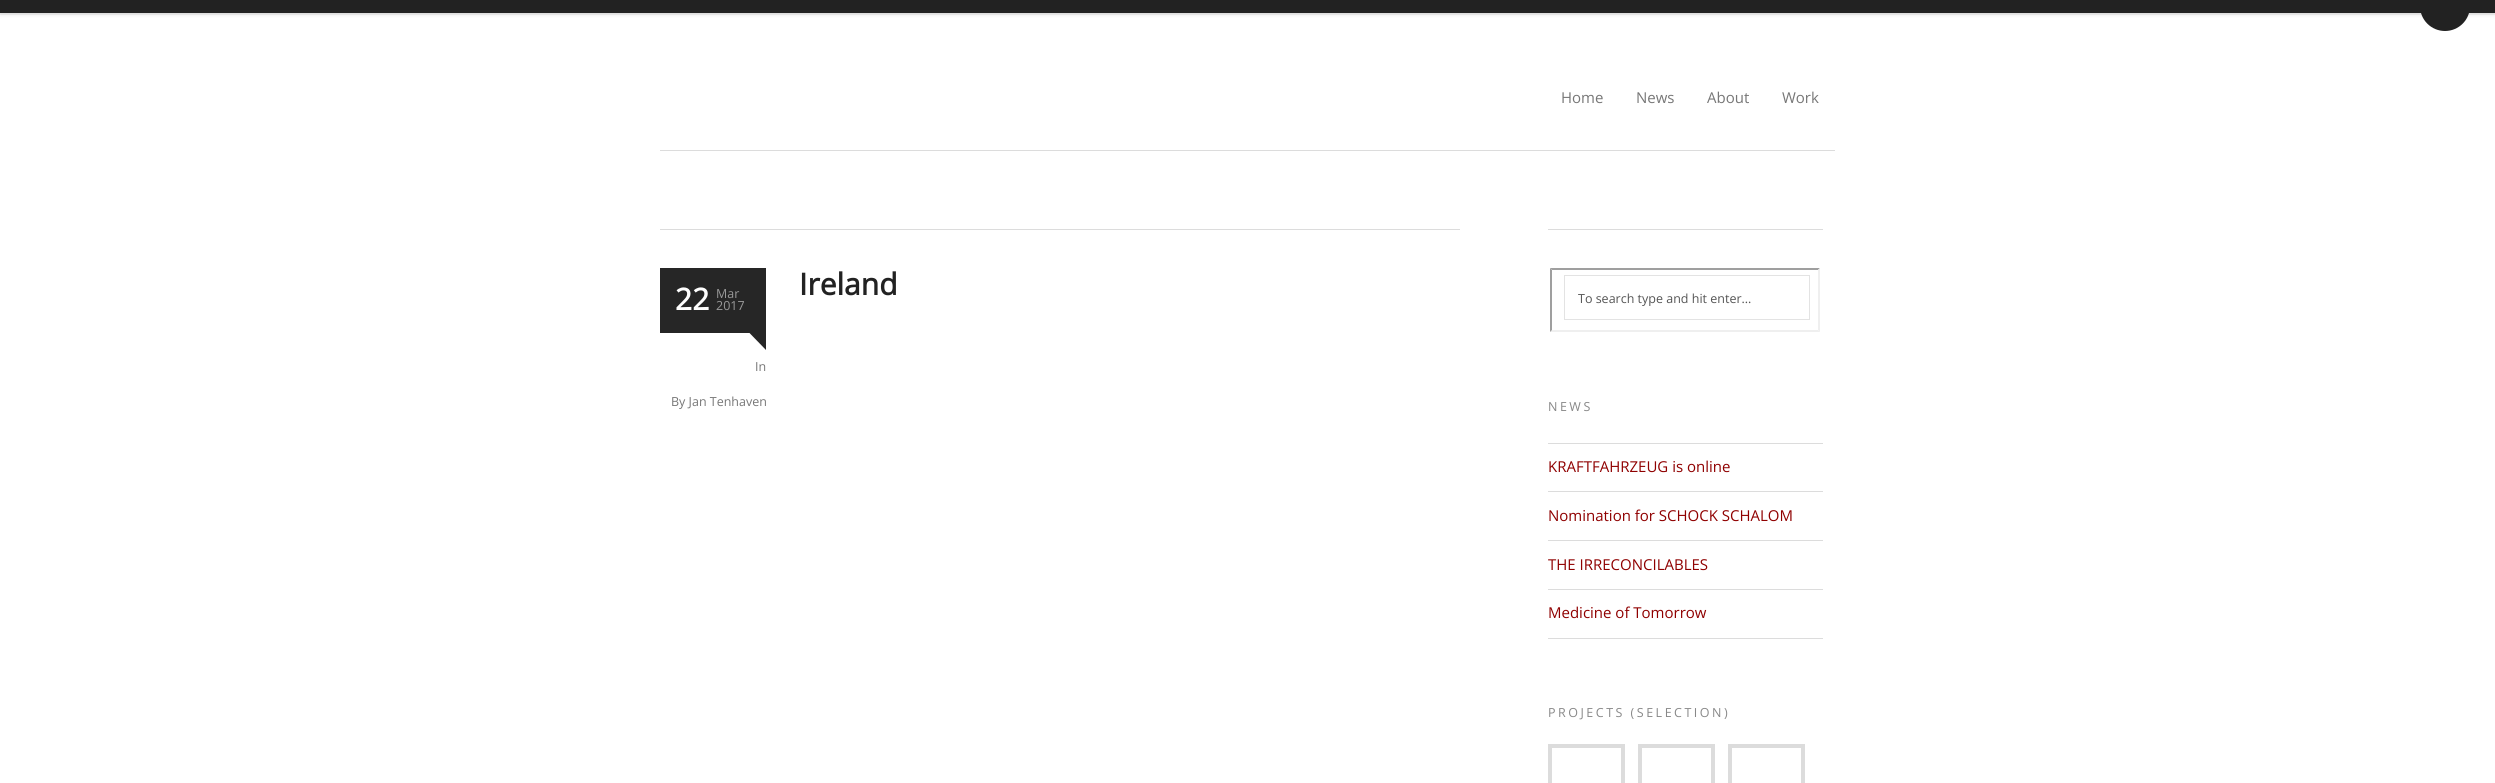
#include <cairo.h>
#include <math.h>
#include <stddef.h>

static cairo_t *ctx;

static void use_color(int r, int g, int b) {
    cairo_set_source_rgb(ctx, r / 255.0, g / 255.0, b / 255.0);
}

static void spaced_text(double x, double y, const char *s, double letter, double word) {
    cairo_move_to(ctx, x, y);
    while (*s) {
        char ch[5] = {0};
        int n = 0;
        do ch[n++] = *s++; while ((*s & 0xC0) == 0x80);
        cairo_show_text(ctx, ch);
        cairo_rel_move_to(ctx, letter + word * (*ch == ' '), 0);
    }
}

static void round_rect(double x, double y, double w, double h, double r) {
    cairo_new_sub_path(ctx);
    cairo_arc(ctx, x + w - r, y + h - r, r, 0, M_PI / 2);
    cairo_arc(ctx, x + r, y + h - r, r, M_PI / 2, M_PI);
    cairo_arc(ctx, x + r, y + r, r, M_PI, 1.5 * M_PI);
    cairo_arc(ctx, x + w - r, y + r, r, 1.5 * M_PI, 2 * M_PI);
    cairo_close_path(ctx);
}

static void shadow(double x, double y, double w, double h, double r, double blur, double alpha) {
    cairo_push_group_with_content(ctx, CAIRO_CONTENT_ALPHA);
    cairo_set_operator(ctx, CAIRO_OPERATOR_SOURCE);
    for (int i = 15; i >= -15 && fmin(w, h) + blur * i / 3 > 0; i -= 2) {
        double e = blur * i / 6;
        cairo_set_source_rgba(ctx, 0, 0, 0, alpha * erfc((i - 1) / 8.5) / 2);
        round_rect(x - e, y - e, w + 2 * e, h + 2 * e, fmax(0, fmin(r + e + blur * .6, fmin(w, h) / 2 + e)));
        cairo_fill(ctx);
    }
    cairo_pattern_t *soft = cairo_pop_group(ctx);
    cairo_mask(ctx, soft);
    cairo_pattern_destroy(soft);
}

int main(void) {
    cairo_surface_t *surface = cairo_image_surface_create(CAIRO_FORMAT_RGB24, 2495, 783);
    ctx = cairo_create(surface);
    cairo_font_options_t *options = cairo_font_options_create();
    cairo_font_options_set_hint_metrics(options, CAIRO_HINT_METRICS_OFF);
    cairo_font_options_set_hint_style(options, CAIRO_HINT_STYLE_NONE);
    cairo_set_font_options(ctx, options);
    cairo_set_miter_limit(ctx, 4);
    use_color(255, 255, 255);
    cairo_paint(ctx);
    use_color(0, 0, 0);
    shadow(0, 0, 2495, 13, 0, 3, 0.2);
    cairo_set_source_rgba(ctx, 0, 0, 0, 0.05);
    cairo_rectangle(ctx, 0, 13, 2495, 2);
    cairo_fill(ctx);
    use_color(34, 34, 34);
    cairo_rectangle(ctx, 0, 0, 2495, 13);
    cairo_fill(ctx);
    round_rect(2420, -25, 50, 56, 25);
    cairo_fill(ctx);
    cairo_select_font_face(ctx, "Open Sans", CAIRO_FONT_SLANT_NORMAL, CAIRO_FONT_WEIGHT_NORMAL);
    cairo_set_font_size(ctx, 15);
    use_color(119, 119, 119);
    cairo_move_to(ctx, 1561, 103);
    cairo_show_text(ctx, "Home");
    cairo_move_to(ctx, 1636, 103);
    cairo_show_text(ctx, "News");
    cairo_move_to(ctx, 1707, 103);
    cairo_show_text(ctx, "About");
    cairo_move_to(ctx, 1782, 103);
    cairo_show_text(ctx, "Work");
    use_color(220, 220, 220);
    cairo_rectangle(ctx, 660, 150, 1175, 1);
    cairo_fill(ctx);
    cairo_rectangle(ctx, 660, 229, 800, 1);
    cairo_fill(ctx);
    cairo_select_font_face(ctx, "Open Sans", CAIRO_FONT_SLANT_NORMAL, CAIRO_FONT_WEIGHT_BOLD);
    cairo_set_font_size(ctx, 30);
    use_color(34, 34, 34);
    cairo_move_to(ctx, 799, 295);
    cairo_show_text(ctx, "Ireland");
    use_color(38, 38, 38);
    cairo_rectangle(ctx, 660, 268, 106, 65);
    cairo_fill(ctx);
    use_color(255, 255, 255);
    cairo_move_to(ctx, 675, 310);
    cairo_show_text(ctx, "22");
    cairo_select_font_face(ctx, "Open Sans", CAIRO_FONT_SLANT_NORMAL, CAIRO_FONT_WEIGHT_NORMAL);
    cairo_set_font_size(ctx, 12.5);
    use_color(153, 153, 153);
    cairo_move_to(ctx, 716, 298);
    cairo_show_text(ctx, "Mar");
    cairo_move_to(ctx, 716, 310);
    cairo_show_text(ctx, "2017");
    use_color(38, 38, 38);
    cairo_new_path(ctx);
    cairo_move_to(ctx, 766, 332.5);
    cairo_line_to(ctx, 766, 350);
    cairo_line_to(ctx, 749, 332.5);
    cairo_close_path(ctx);
    cairo_fill(ctx);
    use_color(119, 119, 119);
    cairo_move_to(ctx, 755, 371);
    cairo_show_text(ctx, "In");
    cairo_move_to(ctx, 671, 406);
    cairo_show_text(ctx, "By Jan Tenhaven");
    use_color(220, 220, 220);
    cairo_rectangle(ctx, 1548, 229, 275, 1);
    cairo_fill(ctx);
    use_color(159, 159, 159);
    cairo_new_path(ctx);
    cairo_move_to(ctx, 1550, 268);
    cairo_line_to(ctx, 1820, 268);
    cairo_line_to(ctx, 1818, 270);
    cairo_line_to(ctx, 1552, 270);
    cairo_close_path(ctx);
    cairo_fill(ctx);
    use_color(239, 239, 239);
    cairo_new_path(ctx);
    cairo_move_to(ctx, 1820, 268);
    cairo_line_to(ctx, 1820, 332);
    cairo_line_to(ctx, 1818, 330);
    cairo_line_to(ctx, 1818, 270);
    cairo_close_path(ctx);
    cairo_fill(ctx);
    cairo_new_path(ctx);
    cairo_move_to(ctx, 1820, 332);
    cairo_line_to(ctx, 1550, 332);
    cairo_line_to(ctx, 1552, 330);
    cairo_line_to(ctx, 1818, 330);
    cairo_close_path(ctx);
    cairo_fill(ctx);
    use_color(159, 159, 159);
    cairo_new_path(ctx);
    cairo_move_to(ctx, 1550, 332);
    cairo_line_to(ctx, 1550, 268);
    cairo_line_to(ctx, 1552, 270);
    cairo_line_to(ctx, 1552, 330);
    cairo_close_path(ctx);
    cairo_fill(ctx);
    cairo_rectangle(ctx, 1564.5, 275.5, 245, 44);
    use_color(227, 227, 227);
    cairo_set_line_width(ctx, 1);
    cairo_stroke(ctx);
    use_color(85, 85, 85);
    cairo_move_to(ctx, 1578, 303);
    cairo_show_text(ctx, "To search type and hit enter...");
    use_color(136, 136, 136);
    spaced_text(1548, 411, "NEWS", 2.5, 0);
    use_color(220, 220, 220);
    cairo_rectangle(ctx, 1548, 443, 275, 1);
    cairo_fill(ctx);
    cairo_rectangle(ctx, 1548, 491, 275, 1);
    cairo_fill(ctx);
    cairo_set_font_size(ctx, 15);
    use_color(143, 0, 0);
    cairo_move_to(ctx, 1548, 472);
    cairo_show_text(ctx, "KRAFTFAHRZEUG is online");
    use_color(220, 220, 220);
    cairo_rectangle(ctx, 1548, 540, 275, 1);
    cairo_fill(ctx);
    use_color(143, 0, 0);
    cairo_move_to(ctx, 1548, 521);
    cairo_show_text(ctx, "Nomination for SCHOCK SCHALOM");
    use_color(220, 220, 220);
    cairo_rectangle(ctx, 1548, 589, 275, 1);
    cairo_fill(ctx);
    use_color(143, 0, 0);
    cairo_move_to(ctx, 1548, 570);
    cairo_show_text(ctx, "THE IRRECONCILABLES");
    use_color(220, 220, 220);
    cairo_rectangle(ctx, 1548, 638, 275, 1);
    cairo_fill(ctx);
    use_color(143, 0, 0);
    cairo_move_to(ctx, 1548, 618);
    cairo_show_text(ctx, "Medicine of Tomorrow");
    cairo_set_font_size(ctx, 12.5);
    use_color(136, 136, 136);
    spaced_text(1548, 717, "PROJECTS (SELECTION)", 2.5, 0);
    cairo_rectangle(ctx, 1550, 746, 73, 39);
    use_color(220, 220, 220);
    cairo_set_line_width(ctx, 4);
    cairo_stroke(ctx);
    cairo_rectangle(ctx, 1640, 746, 73, 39);
    cairo_stroke(ctx);
    cairo_rectangle(ctx, 1730, 746, 73, 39);
    cairo_stroke(ctx);
    cairo_surface_write_to_png(surface, "result.png");
    cairo_font_options_destroy(options);
    cairo_destroy(ctx);
    cairo_surface_destroy(surface);
    return 0;
}
